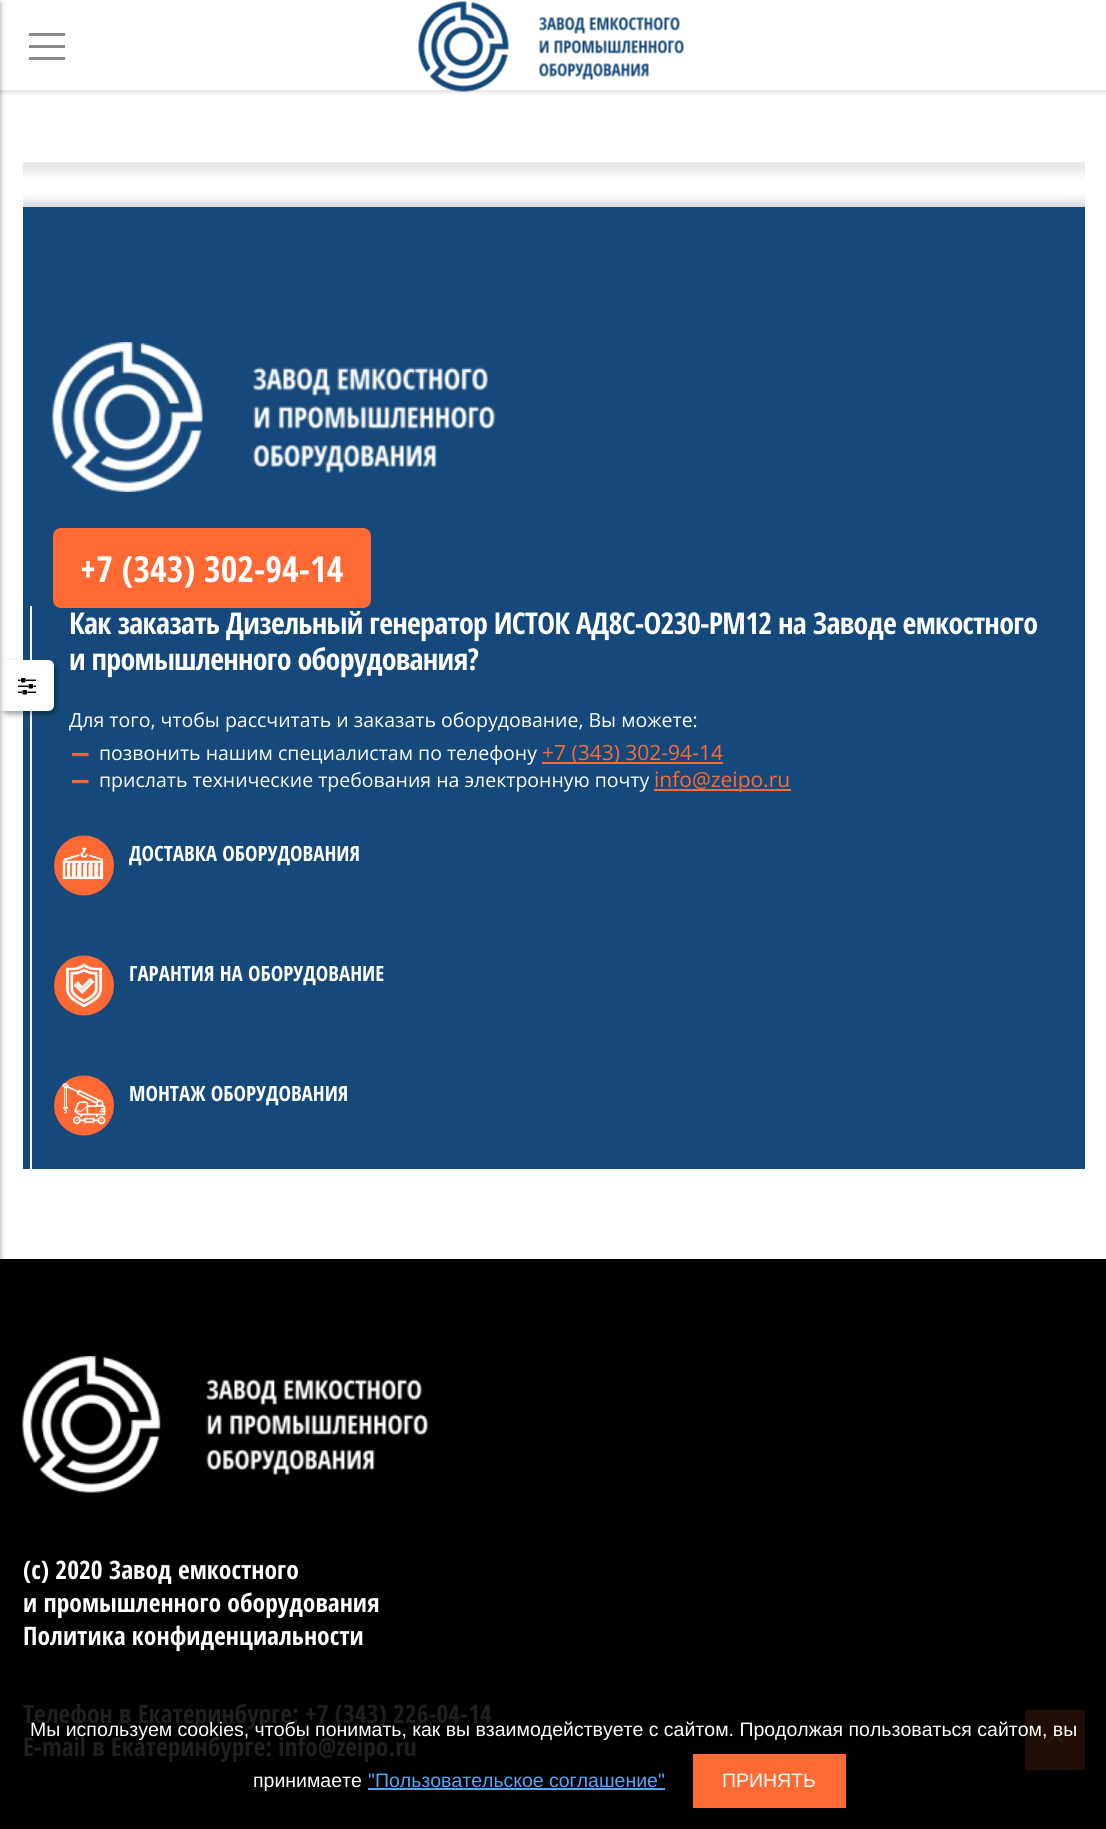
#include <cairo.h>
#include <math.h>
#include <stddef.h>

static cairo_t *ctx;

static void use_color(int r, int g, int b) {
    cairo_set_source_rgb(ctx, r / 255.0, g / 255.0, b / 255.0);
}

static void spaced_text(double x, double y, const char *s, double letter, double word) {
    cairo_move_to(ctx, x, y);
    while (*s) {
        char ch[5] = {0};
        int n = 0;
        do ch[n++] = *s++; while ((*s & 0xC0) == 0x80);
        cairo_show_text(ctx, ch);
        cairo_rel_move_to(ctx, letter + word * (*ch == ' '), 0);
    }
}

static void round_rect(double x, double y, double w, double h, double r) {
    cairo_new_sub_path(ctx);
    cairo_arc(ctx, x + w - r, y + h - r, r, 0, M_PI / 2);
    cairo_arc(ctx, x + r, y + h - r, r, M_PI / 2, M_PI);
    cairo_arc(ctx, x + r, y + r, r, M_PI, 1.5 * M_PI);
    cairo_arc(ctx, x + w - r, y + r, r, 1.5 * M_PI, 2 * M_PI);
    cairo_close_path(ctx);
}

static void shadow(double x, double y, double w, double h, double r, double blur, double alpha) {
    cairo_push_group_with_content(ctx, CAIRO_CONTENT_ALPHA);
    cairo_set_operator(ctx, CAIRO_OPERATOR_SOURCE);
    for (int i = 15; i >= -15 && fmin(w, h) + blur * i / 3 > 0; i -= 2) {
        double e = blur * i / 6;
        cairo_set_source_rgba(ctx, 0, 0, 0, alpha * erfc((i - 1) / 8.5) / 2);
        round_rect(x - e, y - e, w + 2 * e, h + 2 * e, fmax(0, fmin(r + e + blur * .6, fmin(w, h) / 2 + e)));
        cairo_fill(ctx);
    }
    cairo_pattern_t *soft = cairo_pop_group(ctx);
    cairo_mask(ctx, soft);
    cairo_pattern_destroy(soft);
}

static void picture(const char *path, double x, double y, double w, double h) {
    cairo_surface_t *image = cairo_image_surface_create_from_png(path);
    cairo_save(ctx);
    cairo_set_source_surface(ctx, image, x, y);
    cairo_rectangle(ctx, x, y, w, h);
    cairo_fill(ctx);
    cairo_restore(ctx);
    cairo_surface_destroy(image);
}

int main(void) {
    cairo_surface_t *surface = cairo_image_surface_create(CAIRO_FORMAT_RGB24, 1106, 1829);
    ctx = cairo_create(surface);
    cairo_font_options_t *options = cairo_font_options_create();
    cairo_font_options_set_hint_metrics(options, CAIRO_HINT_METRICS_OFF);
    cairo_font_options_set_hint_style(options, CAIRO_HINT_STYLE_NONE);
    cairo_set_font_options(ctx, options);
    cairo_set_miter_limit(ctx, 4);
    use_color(255, 255, 255);
    cairo_paint(ctx);
    use_color(0, 0, 0);
    shadow(-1, -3, 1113, 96, 0, 2, 0.1);
    cairo_save(ctx);
    cairo_rectangle(ctx, 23, 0, 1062, 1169);
    cairo_clip(ctx);
    cairo_set_fill_rule(ctx, CAIRO_FILL_RULE_EVEN_ODD);
    cairo_new_path(ctx);
    cairo_move_to(ctx, 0, 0);
    cairo_line_to(ctx, 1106, 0);
    cairo_line_to(ctx, 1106, 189);
    cairo_line_to(ctx, 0, 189);
    cairo_close_path(ctx);
    cairo_move_to(ctx, 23, -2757);
    cairo_line_to(ctx, 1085, -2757);
    cairo_line_to(ctx, 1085, 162);
    cairo_line_to(ctx, 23, 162);
    cairo_close_path(ctx);
    cairo_clip(ctx);
    use_color(230, 230, 230);
    shadow(12, -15, 1083, 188, 0, 5, 1);
    cairo_restore(ctx);
    use_color(255, 255, 255);
    cairo_rectangle(ctx, 0, 0, 1106, 90);
    cairo_fill(ctx);
    use_color(138, 138, 138);
    cairo_rectangle(ctx, 29, 33, 36, 3);
    cairo_fill(ctx);
    cairo_rectangle(ctx, 29, 45, 36, 3);
    cairo_fill(ctx);
    cairo_rectangle(ctx, 29, 57, 36, 3);
    cairo_fill(ctx);
    picture("img1.png", 418, 1, 266, 91);
    cairo_save(ctx);
    cairo_rectangle(ctx, 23, 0, 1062, 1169);
    cairo_clip(ctx);
    use_color(216, 216, 216);
    shadow(17, 201, 1074, 1004, 0, 4.5, 1);
    cairo_restore(ctx);
    use_color(21, 73, 123);
    cairo_rectangle(ctx, 23, 207, 1062, 962);
    cairo_fill(ctx);
    use_color(255, 255, 255);
    cairo_rectangle(ctx, 30, 606, 2, 563);
    cairo_fill(ctx);
    use_color(0, 0, 0);
    shadow(2, 663, 54, 51, 6, 3, 0.4);
    use_color(255, 255, 255);
    cairo_new_path(ctx);
    cairo_move_to(ctx, 0, 660);
    cairo_line_to(ctx, 48, 660);
    cairo_curve_to(ctx, 51.5, 660, 54, 662.5, 54, 666);
    cairo_line_to(ctx, 54, 705);
    cairo_curve_to(ctx, 54, 708.5, 51.5, 711, 48, 711);
    cairo_line_to(ctx, 0, 711);
    cairo_close_path(ctx);
    cairo_fill(ctx);
    picture("img2.png", 18, 678, 18, 17);
    use_color(0, 0, 0);
    cairo_rectangle(ctx, 0, 1259, 1106, 570);
    cairo_fill(ctx);
    use_color(0, 0, 0);
    shadow(-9, 3, 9, 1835, 0, 3, 0.4);
    picture("img3.png", 52, 342, 444, 150);
    use_color(255, 105, 51);
    round_rect(53, 528, 318, 80, 8);
    cairo_fill(ctx);
    cairo_select_font_face(ctx, "Open Sans Condensed", CAIRO_FONT_SLANT_NORMAL, CAIRO_FONT_WEIGHT_BOLD);
    cairo_set_font_size(ctx, 36);
    use_color(255, 255, 255);
    cairo_move_to(ctx, 80, 582);
    cairo_show_text(ctx, "+7 (343) 302-94-14");
    cairo_set_font_size(ctx, 30);
    spaced_text(69, 634, "Как заказать Дизельный генератор ИСТОК АД8С-О230-РМ12 на Заводе емкостного", -0.75, 0);
    spaced_text(69, 670, "и промышленного оборудования?", -0.75, 0);
    cairo_select_font_face(ctx, "Open Sans", CAIRO_FONT_SLANT_NORMAL, CAIRO_FONT_WEIGHT_NORMAL);
    cairo_set_font_size(ctx, 19.5);
    cairo_move_to(ctx, 69, 727);
    cairo_show_text(ctx, "Для того, чтобы рассчитать и заказать оборудование, Вы можете:");
    picture("img4.png", 72, 753, 17, 4);
    cairo_move_to(ctx, 99, 760);
    cairo_show_text(ctx, "позвонить нашим специалистам по телефону");
    use_color(255, 105, 51);
    cairo_rectangle(ctx, 542, 762, 181, 2);
    cairo_fill(ctx);
    cairo_set_font_size(ctx, 21);
    cairo_move_to(ctx, 542, 760);
    cairo_show_text(ctx, "+7 (343) 302-94-14");
    picture("img4.png", 72, 780, 17, 4);
    cairo_set_font_size(ctx, 19.5);
    use_color(255, 255, 255);
    cairo_move_to(ctx, 99, 787);
    cairo_show_text(ctx, "прислать технические требования на электронную почту");
    use_color(255, 105, 51);
    cairo_rectangle(ctx, 654, 789, 137, 2);
    cairo_fill(ctx);
    cairo_set_font_size(ctx, 21);
    cairo_move_to(ctx, 654, 787);
    cairo_show_text(ctx, "info@zeipo.ru");
    picture("img5.png", 54, 835, 60, 61);
    cairo_select_font_face(ctx, "Open Sans Condensed", CAIRO_FONT_SLANT_NORMAL, CAIRO_FONT_WEIGHT_BOLD);
    use_color(255, 255, 255);
    cairo_move_to(ctx, 129, 861);
    cairo_show_text(ctx, "ДОСТАВКА ОБОРУДОВАНИЯ");
    picture("img6.png", 54, 955, 60, 61);
    cairo_move_to(ctx, 129, 981);
    cairo_show_text(ctx, "ГАРАНТИЯ НА ОБОРУДОВАНИЕ");
    picture("img7.png", 54, 1075, 60, 61);
    cairo_move_to(ctx, 129, 1101);
    cairo_show_text(ctx, "МОНТАЖ ОБОРУДОВАНИЯ");
    picture("img8.png", 22, 1356, 407, 137);
    cairo_set_font_size(ctx, 25.5);
    cairo_move_to(ctx, 23, 1579);
    cairo_show_text(ctx, "(с) 2020 Завод емкостного");
    cairo_move_to(ctx, 23, 1612);
    cairo_show_text(ctx, "и промышленного оборудования");
    cairo_move_to(ctx, 23, 1645);
    cairo_show_text(ctx, "Политика конфиденциальности");
    use_color(31, 31, 31);
    cairo_move_to(ctx, 23, 1723);
    cairo_show_text(ctx, "Телефон в Екатеринбурге: +7 (343) 226-04-14");
    cairo_move_to(ctx, 23, 1756);
    cairo_show_text(ctx, "E-mail в Екатеринбурге: info@zeipo.ru");
    use_color(31, 13, 6);
    cairo_rectangle(ctx, 1025, 1710, 60, 60);
    cairo_fill(ctx);
    picture("img9.png", 1046, 1733, 18, 10);
    cairo_select_font_face(ctx, "Liberation Sans", CAIRO_FONT_SLANT_NORMAL, CAIRO_FONT_WEIGHT_NORMAL);
    cairo_set_font_size(ctx, 19.5);
    use_color(255, 255, 255);
    cairo_move_to(ctx, 30, 1736);
    cairo_show_text(ctx, "Мы используем cookies, чтобы понимать, как вы взаимодействуете с сайтом. Продолжая пользоваться сайтом, вы");
    cairo_move_to(ctx, 253, 1787);
    cairo_show_text(ctx, "принимаете");
    use_color(83, 167, 248);
    cairo_move_to(ctx, 368, 1787);
    cairo_show_text(ctx, "\"Пользовательское соглашение\"");
    cairo_rectangle(ctx, 368, 1788, 297, 2);
    cairo_fill(ctx);
    use_color(255, 105, 51);
    cairo_rectangle(ctx, 693, 1754, 153, 54);
    cairo_fill(ctx);
    use_color(255, 255, 255);
    cairo_move_to(ctx, 722, 1787);
    cairo_show_text(ctx, "ПРИНЯТЬ");
    cairo_surface_write_to_png(surface, "result.png");
    cairo_font_options_destroy(options);
    cairo_destroy(ctx);
    cairo_surface_destroy(surface);
    return 0;
}
